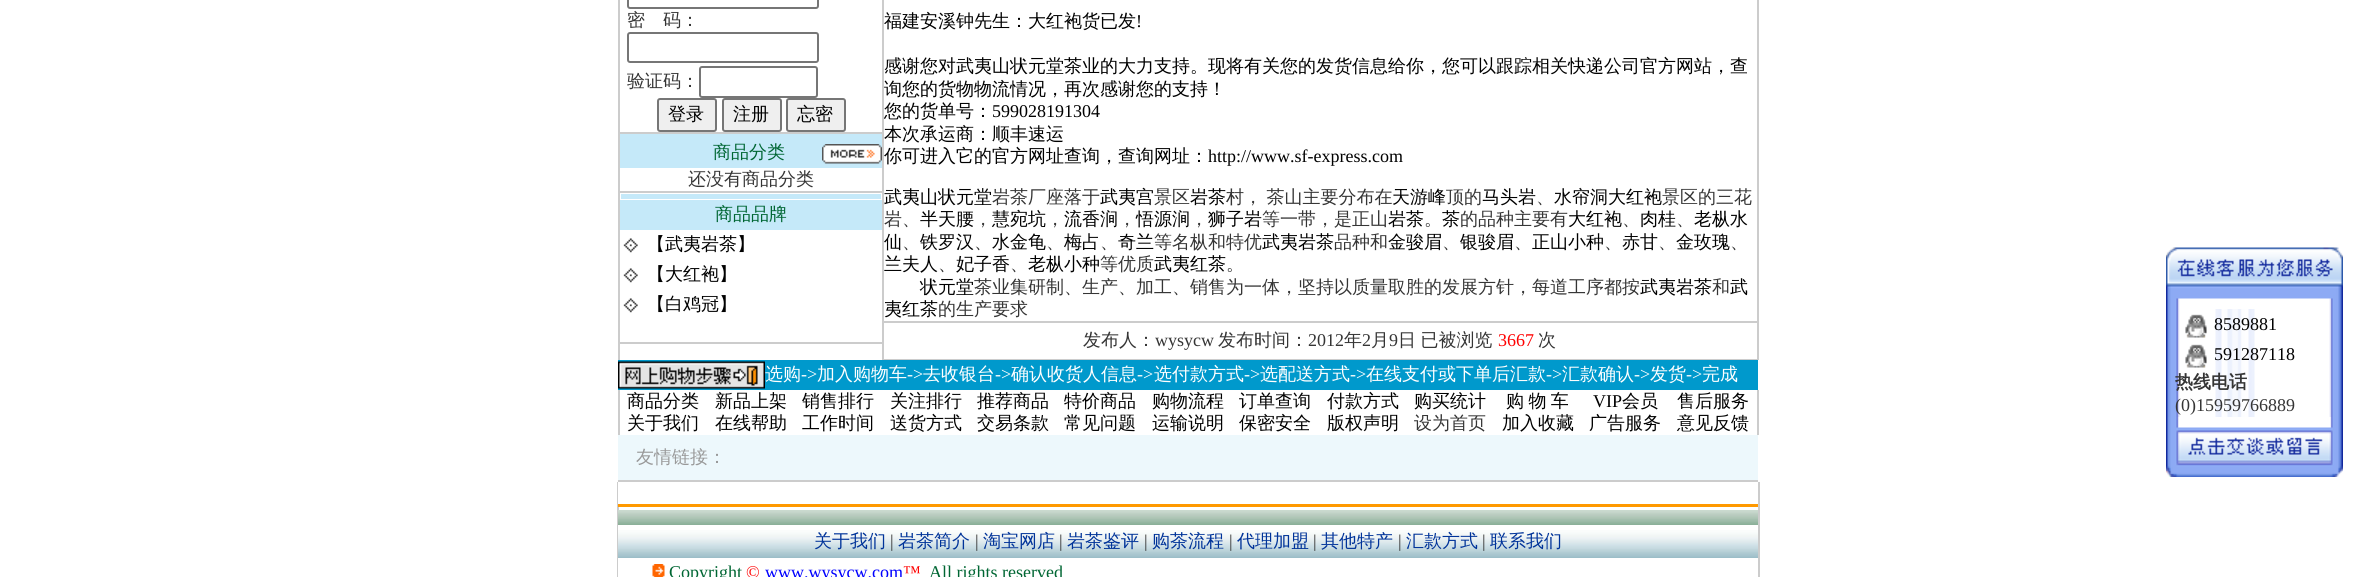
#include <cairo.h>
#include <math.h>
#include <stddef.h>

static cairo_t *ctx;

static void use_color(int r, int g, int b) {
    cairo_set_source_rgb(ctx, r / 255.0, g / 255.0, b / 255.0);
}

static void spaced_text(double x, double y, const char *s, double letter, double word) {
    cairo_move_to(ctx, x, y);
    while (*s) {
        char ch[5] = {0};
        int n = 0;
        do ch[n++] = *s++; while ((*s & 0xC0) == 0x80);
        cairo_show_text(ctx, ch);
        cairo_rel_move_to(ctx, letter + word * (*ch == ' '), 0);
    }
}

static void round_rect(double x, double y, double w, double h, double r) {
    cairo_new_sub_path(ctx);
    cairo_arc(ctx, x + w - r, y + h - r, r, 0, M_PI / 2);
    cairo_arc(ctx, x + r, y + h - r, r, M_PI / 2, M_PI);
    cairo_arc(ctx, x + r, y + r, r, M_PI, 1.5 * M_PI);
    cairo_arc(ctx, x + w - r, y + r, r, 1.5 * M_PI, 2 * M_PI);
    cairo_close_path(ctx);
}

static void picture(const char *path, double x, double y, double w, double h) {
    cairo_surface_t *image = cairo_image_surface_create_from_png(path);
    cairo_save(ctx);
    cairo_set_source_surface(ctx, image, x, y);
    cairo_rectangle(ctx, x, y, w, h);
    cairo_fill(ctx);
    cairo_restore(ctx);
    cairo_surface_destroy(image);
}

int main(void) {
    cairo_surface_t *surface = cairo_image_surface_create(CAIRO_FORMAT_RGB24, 2376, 577);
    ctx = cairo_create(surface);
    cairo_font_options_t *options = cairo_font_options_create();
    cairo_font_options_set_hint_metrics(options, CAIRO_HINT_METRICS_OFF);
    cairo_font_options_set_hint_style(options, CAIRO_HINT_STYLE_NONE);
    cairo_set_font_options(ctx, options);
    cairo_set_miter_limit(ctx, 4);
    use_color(255, 255, 255);
    cairo_paint(ctx);
    use_color(204, 204, 204);
    cairo_rectangle(ctx, 1757, 0, 2, 360);
    cairo_fill(ctx);
    cairo_rectangle(ctx, 618, 0, 2, 360);
    cairo_fill(ctx);
    round_rect(628, -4, 190, 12, 2);
    use_color(118, 118, 118);
    cairo_stroke(ctx);
    cairo_select_font_face(ctx, "WenQuanYi Zen Hei Medium", CAIRO_FONT_SLANT_NORMAL, CAIRO_FONT_WEIGHT_NORMAL);
    cairo_set_font_size(ctx, 18);
    use_color(53, 53, 53);
    cairo_move_to(ctx, 627, 26);
    cairo_show_text(ctx, "密　码：");
    round_rect(628, 33, 190, 29, 2);
    use_color(118, 118, 118);
    cairo_stroke(ctx);
    use_color(53, 53, 53);
    cairo_move_to(ctx, 627, 87);
    cairo_show_text(ctx, "验证码：");
    round_rect(700, 67, 117, 30, 2);
    use_color(118, 118, 118);
    cairo_stroke(ctx);
    use_color(239, 239, 239);
    round_rect(658, 99, 58, 32, 2);
    cairo_fill_preserve(ctx);
    use_color(118, 118, 118);
    cairo_stroke(ctx);
    use_color(0, 0, 0);
    cairo_move_to(ctx, 668, 120);
    cairo_show_text(ctx, "登录");
    use_color(239, 239, 239);
    round_rect(723, 99, 58, 32, 2);
    cairo_fill_preserve(ctx);
    use_color(118, 118, 118);
    cairo_stroke(ctx);
    use_color(0, 0, 0);
    cairo_move_to(ctx, 733, 120);
    cairo_show_text(ctx, "注册");
    use_color(239, 239, 239);
    round_rect(787, 99, 58, 32, 2);
    cairo_fill_preserve(ctx);
    use_color(118, 118, 118);
    cairo_stroke(ctx);
    use_color(0, 0, 0);
    cairo_move_to(ctx, 797, 120);
    cairo_show_text(ctx, "忘密");
    use_color(204, 204, 204);
    cairo_rectangle(ctx, 620, 132, 262, 2);
    cairo_fill(ctx);
    use_color(197, 233, 249);
    cairo_rectangle(ctx, 620, 134, 262, 4);
    cairo_fill(ctx);
    cairo_rectangle(ctx, 620, 138, 262, 30);
    cairo_fill(ctx);
    use_color(0, 102, 51);
    cairo_move_to(ctx, 713, 158);
    cairo_show_text(ctx, "商品分类");
    picture("img1.png", 822, 144, 60, 20);
    use_color(53, 53, 53);
    cairo_move_to(ctx, 688, 185);
    cairo_show_text(ctx, "还没有商品分类");
    use_color(204, 204, 204);
    cairo_rectangle(ctx, 620, 191, 262, 2);
    cairo_fill(ctx);
    use_color(197, 233, 249);
    cairo_rectangle(ctx, 621, 194, 260, 5);
    cairo_fill(ctx);
    cairo_rectangle(ctx, 620, 200, 262, 30);
    cairo_fill(ctx);
    use_color(0, 102, 51);
    cairo_move_to(ctx, 715, 220);
    cairo_show_text(ctx, "商品品牌");
    picture("img2.png", 623, 238, 15, 15);
    use_color(0, 0, 0);
    cairo_move_to(ctx, 647, 250);
    cairo_show_text(ctx, "【武夷岩茶】");
    picture("img2.png", 623, 268, 15, 15);
    cairo_move_to(ctx, 647, 280);
    cairo_show_text(ctx, "【大红袍】");
    picture("img2.png", 623, 298, 15, 15);
    cairo_move_to(ctx, 647, 310);
    cairo_show_text(ctx, "【白鸡冠】");
    use_color(204, 204, 204);
    cairo_rectangle(ctx, 620, 342, 262, 2);
    cairo_fill(ctx);
    cairo_rectangle(ctx, 882, 0, 2, 360);
    cairo_fill(ctx);
    cairo_rectangle(ctx, 884, 321, 873, 2);
    cairo_fill(ctx);
    use_color(0, 0, 0);
    cairo_move_to(ctx, 884, 27);
    cairo_show_text(ctx, "福建安溪钟先生：大红袍货已发");
    cairo_select_font_face(ctx, "Liberation Serif", CAIRO_FONT_SLANT_NORMAL, CAIRO_FONT_WEIGHT_NORMAL);
    cairo_move_to(ctx, 1136, 27);
    cairo_show_text(ctx, "!");
    cairo_select_font_face(ctx, "WenQuanYi Zen Hei Medium", CAIRO_FONT_SLANT_NORMAL, CAIRO_FONT_WEIGHT_NORMAL);
    cairo_move_to(ctx, 884, 72);
    cairo_show_text(ctx, "感谢您对武夷山状元堂茶业的大力支持。现将有关您的发货信息给你，您可以跟踪相关快递公司官方网站，查");
    cairo_move_to(ctx, 884, 95);
    cairo_show_text(ctx, "询您的货物物流情况，再次感谢您的支持！");
    cairo_move_to(ctx, 884, 117);
    cairo_show_text(ctx, "您的货单号：");
    cairo_select_font_face(ctx, "Liberation Serif", CAIRO_FONT_SLANT_NORMAL, CAIRO_FONT_WEIGHT_NORMAL);
    cairo_move_to(ctx, 992, 117);
    cairo_show_text(ctx, "599028191304");
    cairo_select_font_face(ctx, "WenQuanYi Zen Hei Medium", CAIRO_FONT_SLANT_NORMAL, CAIRO_FONT_WEIGHT_NORMAL);
    cairo_move_to(ctx, 884, 140);
    cairo_show_text(ctx, "本次承运商：顺丰速运");
    cairo_move_to(ctx, 884, 162);
    cairo_show_text(ctx, "你可进入它的官方网址查询，查询网址：");
    cairo_select_font_face(ctx, "Liberation Serif", CAIRO_FONT_SLANT_NORMAL, CAIRO_FONT_WEIGHT_NORMAL);
    cairo_move_to(ctx, 1208, 162);
    cairo_show_text(ctx, "http://www.sf-express.com");
    cairo_select_font_face(ctx, "WenQuanYi Zen Hei Medium", CAIRO_FONT_SLANT_NORMAL, CAIRO_FONT_WEIGHT_NORMAL);
    cairo_move_to(ctx, 884, 203);
    cairo_show_text(ctx, "武夷山状元堂");
    use_color(53, 53, 53);
    cairo_move_to(ctx, 992, 203);
    cairo_show_text(ctx, "岩茶厂座落于");
    use_color(0, 0, 0);
    cairo_move_to(ctx, 1100, 203);
    cairo_show_text(ctx, "武夷宫");
    use_color(53, 53, 53);
    cairo_move_to(ctx, 1154, 203);
    cairo_show_text(ctx, "景区");
    use_color(0, 0, 0);
    cairo_move_to(ctx, 1190, 203);
    cairo_show_text(ctx, "岩茶");
    use_color(53, 53, 53);
    spaced_text(1226, 203, "村， 茶山主要分布在", 0, -1);
    use_color(0, 0, 0);
    cairo_move_to(ctx, 1392, 203);
    cairo_show_text(ctx, "天游峰");
    use_color(53, 53, 53);
    cairo_move_to(ctx, 1446, 203);
    cairo_show_text(ctx, "顶的");
    use_color(0, 0, 0);
    cairo_move_to(ctx, 1482, 203);
    cairo_show_text(ctx, "马头岩");
    use_color(53, 53, 53);
    cairo_move_to(ctx, 1536, 203);
    cairo_show_text(ctx, "、");
    use_color(0, 0, 0);
    cairo_move_to(ctx, 1554, 203);
    cairo_show_text(ctx, "水帘洞大红袍");
    use_color(53, 53, 53);
    cairo_move_to(ctx, 1662, 203);
    cairo_show_text(ctx, "景区的三花");
    cairo_move_to(ctx, 884, 225);
    cairo_show_text(ctx, "岩、");
    use_color(0, 0, 0);
    cairo_move_to(ctx, 920, 225);
    cairo_show_text(ctx, "半天腰");
    use_color(53, 53, 53);
    cairo_move_to(ctx, 974, 225);
    cairo_show_text(ctx, "，");
    use_color(0, 0, 0);
    cairo_move_to(ctx, 992, 225);
    cairo_show_text(ctx, "慧宛坑");
    use_color(53, 53, 53);
    cairo_move_to(ctx, 1046, 225);
    cairo_show_text(ctx, "，");
    use_color(0, 0, 0);
    cairo_move_to(ctx, 1064, 225);
    cairo_show_text(ctx, "流香涧");
    use_color(53, 53, 53);
    cairo_move_to(ctx, 1118, 225);
    cairo_show_text(ctx, "，");
    use_color(0, 0, 0);
    cairo_move_to(ctx, 1136, 225);
    cairo_show_text(ctx, "悟源涧");
    use_color(53, 53, 53);
    cairo_move_to(ctx, 1190, 225);
    cairo_show_text(ctx, "，");
    use_color(0, 0, 0);
    cairo_move_to(ctx, 1208, 225);
    cairo_show_text(ctx, "狮子岩");
    use_color(53, 53, 53);
    cairo_move_to(ctx, 1262, 225);
    cairo_show_text(ctx, "等一带，是正山");
    use_color(0, 0, 0);
    cairo_move_to(ctx, 1388, 225);
    cairo_show_text(ctx, "岩茶");
    use_color(53, 53, 53);
    cairo_move_to(ctx, 1424, 225);
    cairo_show_text(ctx, "。");
    use_color(0, 0, 0);
    cairo_move_to(ctx, 1442, 225);
    cairo_show_text(ctx, "茶");
    use_color(53, 53, 53);
    cairo_move_to(ctx, 1460, 225);
    cairo_show_text(ctx, "的品种主要有");
    use_color(0, 0, 0);
    cairo_move_to(ctx, 1568, 225);
    cairo_show_text(ctx, "大红袍");
    use_color(53, 53, 53);
    cairo_move_to(ctx, 1622, 225);
    cairo_show_text(ctx, "、");
    use_color(0, 0, 0);
    cairo_move_to(ctx, 1640, 225);
    cairo_show_text(ctx, "肉桂");
    use_color(53, 53, 53);
    cairo_move_to(ctx, 1676, 225);
    cairo_show_text(ctx, "、");
    use_color(0, 0, 0);
    cairo_move_to(ctx, 1694, 225);
    cairo_show_text(ctx, "老枞水");
    cairo_move_to(ctx, 884, 248);
    cairo_show_text(ctx, "仙");
    use_color(53, 53, 53);
    cairo_move_to(ctx, 902, 248);
    cairo_show_text(ctx, "、");
    use_color(0, 0, 0);
    cairo_move_to(ctx, 920, 248);
    cairo_show_text(ctx, "铁罗汉");
    use_color(53, 53, 53);
    cairo_move_to(ctx, 974, 248);
    cairo_show_text(ctx, "、");
    use_color(0, 0, 0);
    cairo_move_to(ctx, 992, 248);
    cairo_show_text(ctx, "水金龟");
    use_color(53, 53, 53);
    cairo_move_to(ctx, 1046, 248);
    cairo_show_text(ctx, "、");
    use_color(0, 0, 0);
    cairo_move_to(ctx, 1064, 248);
    cairo_show_text(ctx, "梅占");
    use_color(53, 53, 53);
    cairo_move_to(ctx, 1100, 248);
    cairo_show_text(ctx, "、");
    use_color(0, 0, 0);
    cairo_move_to(ctx, 1118, 248);
    cairo_show_text(ctx, "奇兰");
    use_color(53, 53, 53);
    cairo_move_to(ctx, 1154, 248);
    cairo_show_text(ctx, "等名枞和特优");
    use_color(0, 0, 0);
    cairo_move_to(ctx, 1262, 248);
    cairo_show_text(ctx, "武夷岩茶");
    use_color(53, 53, 53);
    cairo_move_to(ctx, 1334, 248);
    cairo_show_text(ctx, "品种和");
    use_color(0, 0, 0);
    cairo_move_to(ctx, 1388, 248);
    cairo_show_text(ctx, "金骏眉");
    use_color(53, 53, 53);
    cairo_move_to(ctx, 1442, 248);
    cairo_show_text(ctx, "、");
    use_color(0, 0, 0);
    cairo_move_to(ctx, 1460, 248);
    cairo_show_text(ctx, "银骏眉");
    use_color(53, 53, 53);
    cairo_move_to(ctx, 1514, 248);
    cairo_show_text(ctx, "、");
    use_color(0, 0, 0);
    cairo_move_to(ctx, 1532, 248);
    cairo_show_text(ctx, "正山小种");
    use_color(53, 53, 53);
    cairo_move_to(ctx, 1604, 248);
    cairo_show_text(ctx, "、");
    use_color(0, 0, 0);
    cairo_move_to(ctx, 1622, 248);
    cairo_show_text(ctx, "赤甘");
    use_color(53, 53, 53);
    cairo_move_to(ctx, 1658, 248);
    cairo_show_text(ctx, "、");
    use_color(0, 0, 0);
    cairo_move_to(ctx, 1676, 248);
    cairo_show_text(ctx, "金玫瑰");
    use_color(53, 53, 53);
    cairo_move_to(ctx, 1730, 248);
    cairo_show_text(ctx, "、");
    use_color(0, 0, 0);
    cairo_move_to(ctx, 884, 270);
    cairo_show_text(ctx, "兰夫人");
    use_color(53, 53, 53);
    cairo_move_to(ctx, 938, 270);
    cairo_show_text(ctx, "、");
    use_color(0, 0, 0);
    cairo_move_to(ctx, 956, 270);
    cairo_show_text(ctx, "妃子香");
    use_color(53, 53, 53);
    cairo_move_to(ctx, 1010, 270);
    cairo_show_text(ctx, "、");
    use_color(0, 0, 0);
    cairo_move_to(ctx, 1028, 270);
    cairo_show_text(ctx, "老枞小种");
    use_color(53, 53, 53);
    cairo_move_to(ctx, 1100, 270);
    cairo_show_text(ctx, "等优质");
    use_color(0, 0, 0);
    cairo_move_to(ctx, 1154, 270);
    cairo_show_text(ctx, "武夷红茶");
    use_color(53, 53, 53);
    cairo_move_to(ctx, 1226, 270);
    cairo_show_text(ctx, "。");
    use_color(0, 0, 0);
    cairo_move_to(ctx, 920, 293);
    cairo_show_text(ctx, "状元堂");
    use_color(53, 53, 53);
    cairo_move_to(ctx, 974, 293);
    cairo_show_text(ctx, "茶业集研制、生产、加工、销售为一体，坚持以质量取胜的发展方针，每道工序都按");
    use_color(0, 0, 0);
    cairo_move_to(ctx, 1640, 293);
    cairo_show_text(ctx, "武夷岩茶");
    use_color(53, 53, 53);
    cairo_move_to(ctx, 1712, 293);
    cairo_show_text(ctx, "和");
    use_color(0, 0, 0);
    cairo_move_to(ctx, 1730, 293);
    cairo_show_text(ctx, "武");
    cairo_move_to(ctx, 884, 315);
    cairo_show_text(ctx, "夷红茶");
    use_color(53, 53, 53);
    cairo_move_to(ctx, 938, 315);
    cairo_show_text(ctx, "的生产要求");
    use_color(204, 204, 204);
    cairo_rectangle(ctx, 884, 359, 873, 1);
    cairo_fill(ctx);
    use_color(53, 53, 53);
    cairo_move_to(ctx, 1083, 346);
    cairo_show_text(ctx, "发布人：");
    cairo_select_font_face(ctx, "Liberation Serif", CAIRO_FONT_SLANT_NORMAL, CAIRO_FONT_WEIGHT_NORMAL);
    cairo_move_to(ctx, 1155, 346);
    cairo_show_text(ctx, "wysycw");
    cairo_select_font_face(ctx, "WenQuanYi Zen Hei Medium", CAIRO_FONT_SLANT_NORMAL, CAIRO_FONT_WEIGHT_NORMAL);
    cairo_move_to(ctx, 1218, 346);
    cairo_show_text(ctx, "发布时间：");
    cairo_select_font_face(ctx, "Liberation Serif", CAIRO_FONT_SLANT_NORMAL, CAIRO_FONT_WEIGHT_NORMAL);
    cairo_move_to(ctx, 1308, 346);
    cairo_show_text(ctx, "2012");
    cairo_select_font_face(ctx, "WenQuanYi Zen Hei Medium", CAIRO_FONT_SLANT_NORMAL, CAIRO_FONT_WEIGHT_NORMAL);
    cairo_move_to(ctx, 1344, 346);
    cairo_show_text(ctx, "年");
    cairo_select_font_face(ctx, "Liberation Serif", CAIRO_FONT_SLANT_NORMAL, CAIRO_FONT_WEIGHT_NORMAL);
    cairo_move_to(ctx, 1362, 346);
    cairo_show_text(ctx, "2");
    cairo_select_font_face(ctx, "WenQuanYi Zen Hei Medium", CAIRO_FONT_SLANT_NORMAL, CAIRO_FONT_WEIGHT_NORMAL);
    cairo_move_to(ctx, 1371, 346);
    cairo_show_text(ctx, "月");
    cairo_select_font_face(ctx, "Liberation Serif", CAIRO_FONT_SLANT_NORMAL, CAIRO_FONT_WEIGHT_NORMAL);
    cairo_move_to(ctx, 1389, 346);
    cairo_show_text(ctx, "9");
    cairo_select_font_face(ctx, "WenQuanYi Zen Hei Medium", CAIRO_FONT_SLANT_NORMAL, CAIRO_FONT_WEIGHT_NORMAL);
    spaced_text(1398, 346, "日 已被浏览", 0, -1);
    cairo_select_font_face(ctx, "Liberation Serif", CAIRO_FONT_SLANT_NORMAL, CAIRO_FONT_WEIGHT_NORMAL);
    use_color(255, 0, 0);
    cairo_move_to(ctx, 1498, 346);
    cairo_show_text(ctx, "3667");
    cairo_select_font_face(ctx, "WenQuanYi Zen Hei Medium", CAIRO_FONT_SLANT_NORMAL, CAIRO_FONT_WEIGHT_NORMAL);
    use_color(53, 53, 53);
    cairo_move_to(ctx, 1538, 346);
    cairo_show_text(ctx, "次");
    use_color(0, 153, 204);
    cairo_rectangle(ctx, 618, 360, 1140, 30);
    cairo_fill(ctx);
    picture("img3.png", 618, 361, 147, 28);
    use_color(255, 255, 255);
    cairo_move_to(ctx, 765, 380);
    cairo_show_text(ctx, "选购");
    cairo_select_font_face(ctx, "Liberation Serif", CAIRO_FONT_SLANT_NORMAL, CAIRO_FONT_WEIGHT_NORMAL);
    cairo_move_to(ctx, 801, 380);
    cairo_show_text(ctx, "->");
    cairo_select_font_face(ctx, "WenQuanYi Zen Hei Medium", CAIRO_FONT_SLANT_NORMAL, CAIRO_FONT_WEIGHT_NORMAL);
    cairo_move_to(ctx, 817, 380);
    cairo_show_text(ctx, "加入购物车");
    cairo_select_font_face(ctx, "Liberation Serif", CAIRO_FONT_SLANT_NORMAL, CAIRO_FONT_WEIGHT_NORMAL);
    cairo_move_to(ctx, 907, 380);
    cairo_show_text(ctx, "->");
    cairo_select_font_face(ctx, "WenQuanYi Zen Hei Medium", CAIRO_FONT_SLANT_NORMAL, CAIRO_FONT_WEIGHT_NORMAL);
    cairo_move_to(ctx, 923, 380);
    cairo_show_text(ctx, "去收银台");
    cairo_select_font_face(ctx, "Liberation Serif", CAIRO_FONT_SLANT_NORMAL, CAIRO_FONT_WEIGHT_NORMAL);
    cairo_move_to(ctx, 995, 380);
    cairo_show_text(ctx, "->");
    cairo_select_font_face(ctx, "WenQuanYi Zen Hei Medium", CAIRO_FONT_SLANT_NORMAL, CAIRO_FONT_WEIGHT_NORMAL);
    cairo_move_to(ctx, 1011, 380);
    cairo_show_text(ctx, "确认收货人信息");
    cairo_select_font_face(ctx, "Liberation Serif", CAIRO_FONT_SLANT_NORMAL, CAIRO_FONT_WEIGHT_NORMAL);
    cairo_move_to(ctx, 1137, 380);
    cairo_show_text(ctx, "->");
    cairo_select_font_face(ctx, "WenQuanYi Zen Hei Medium", CAIRO_FONT_SLANT_NORMAL, CAIRO_FONT_WEIGHT_NORMAL);
    cairo_move_to(ctx, 1154, 380);
    cairo_show_text(ctx, "选付款方式");
    cairo_select_font_face(ctx, "Liberation Serif", CAIRO_FONT_SLANT_NORMAL, CAIRO_FONT_WEIGHT_NORMAL);
    cairo_move_to(ctx, 1244, 380);
    cairo_show_text(ctx, "->");
    cairo_select_font_face(ctx, "WenQuanYi Zen Hei Medium", CAIRO_FONT_SLANT_NORMAL, CAIRO_FONT_WEIGHT_NORMAL);
    cairo_move_to(ctx, 1260, 380);
    cairo_show_text(ctx, "选配送方式");
    cairo_select_font_face(ctx, "Liberation Serif", CAIRO_FONT_SLANT_NORMAL, CAIRO_FONT_WEIGHT_NORMAL);
    cairo_move_to(ctx, 1350, 380);
    cairo_show_text(ctx, "->");
    cairo_select_font_face(ctx, "WenQuanYi Zen Hei Medium", CAIRO_FONT_SLANT_NORMAL, CAIRO_FONT_WEIGHT_NORMAL);
    cairo_move_to(ctx, 1366, 380);
    cairo_show_text(ctx, "在线支付或下单后汇款");
    cairo_select_font_face(ctx, "Liberation Serif", CAIRO_FONT_SLANT_NORMAL, CAIRO_FONT_WEIGHT_NORMAL);
    cairo_move_to(ctx, 1546, 380);
    cairo_show_text(ctx, "->");
    cairo_select_font_face(ctx, "WenQuanYi Zen Hei Medium", CAIRO_FONT_SLANT_NORMAL, CAIRO_FONT_WEIGHT_NORMAL);
    cairo_move_to(ctx, 1562, 380);
    cairo_show_text(ctx, "汇款确认");
    cairo_select_font_face(ctx, "Liberation Serif", CAIRO_FONT_SLANT_NORMAL, CAIRO_FONT_WEIGHT_NORMAL);
    cairo_move_to(ctx, 1634, 380);
    cairo_show_text(ctx, "->");
    cairo_select_font_face(ctx, "WenQuanYi Zen Hei Medium", CAIRO_FONT_SLANT_NORMAL, CAIRO_FONT_WEIGHT_NORMAL);
    cairo_move_to(ctx, 1650, 380);
    cairo_show_text(ctx, "发货");
    cairo_select_font_face(ctx, "Liberation Serif", CAIRO_FONT_SLANT_NORMAL, CAIRO_FONT_WEIGHT_NORMAL);
    cairo_move_to(ctx, 1686, 380);
    cairo_show_text(ctx, "->");
    cairo_select_font_face(ctx, "WenQuanYi Zen Hei Medium", CAIRO_FONT_SLANT_NORMAL, CAIRO_FONT_WEIGHT_NORMAL);
    cairo_move_to(ctx, 1702, 380);
    cairo_show_text(ctx, "完成");
    picture("img4.png", 2166, 247, 177, 62);
    picture("img5.png", 2166, 309, 177, 63);
    picture("img6.png", 2185, 314, 22, 24);
    cairo_select_font_face(ctx, "Liberation Serif", CAIRO_FONT_SLANT_NORMAL, CAIRO_FONT_WEIGHT_NORMAL);
    use_color(0, 0, 0);
    cairo_move_to(ctx, 2214, 330);
    cairo_show_text(ctx, "8589881");
    picture("img6.png", 2185, 344, 22, 24);
    cairo_move_to(ctx, 2214, 360);
    cairo_show_text(ctx, "591287118");
    picture("img7.png", 2166, 372, 177, 45);
    cairo_select_font_face(ctx, "WenQuanYi Zen Hei", CAIRO_FONT_SLANT_NORMAL, CAIRO_FONT_WEIGHT_BOLD);
    use_color(53, 53, 53);
    cairo_move_to(ctx, 2175, 388);
    cairo_show_text(ctx, "热线电话");
    cairo_select_font_face(ctx, "Liberation Serif", CAIRO_FONT_SLANT_NORMAL, CAIRO_FONT_WEIGHT_NORMAL);
    cairo_move_to(ctx, 2175, 411);
    cairo_show_text(ctx, "(0)15959766889");
    picture("img8.png", 2166, 417, 177, 60);
    use_color(204, 204, 204);
    cairo_rectangle(ctx, 1757, 390, 2, 45);
    cairo_fill(ctx);
    cairo_rectangle(ctx, 618, 390, 2, 45);
    cairo_fill(ctx);
    cairo_select_font_face(ctx, "WenQuanYi Zen Hei Medium", CAIRO_FONT_SLANT_NORMAL, CAIRO_FONT_WEIGHT_NORMAL);
    use_color(0, 0, 0);
    cairo_move_to(ctx, 627, 407);
    cairo_show_text(ctx, "商品分类");
    cairo_move_to(ctx, 715, 407);
    cairo_show_text(ctx, "新品上架");
    cairo_move_to(ctx, 802, 407);
    cairo_show_text(ctx, "销售排行");
    cairo_move_to(ctx, 890, 407);
    cairo_show_text(ctx, "关注排行");
    cairo_move_to(ctx, 977, 407);
    cairo_show_text(ctx, "推荐商品");
    cairo_move_to(ctx, 1064, 407);
    cairo_show_text(ctx, "特价商品");
    cairo_move_to(ctx, 1152, 407);
    cairo_show_text(ctx, "购物流程");
    cairo_move_to(ctx, 1239, 407);
    cairo_show_text(ctx, "订单查询");
    cairo_move_to(ctx, 1327, 407);
    cairo_show_text(ctx, "付款方式");
    cairo_move_to(ctx, 1414, 407);
    cairo_show_text(ctx, "购买统计");
    spaced_text(1506, 407, "购 物 车", 0, -1);
    cairo_select_font_face(ctx, "Liberation Serif", CAIRO_FONT_SLANT_NORMAL, CAIRO_FONT_WEIGHT_NORMAL);
    cairo_move_to(ctx, 1593, 407);
    cairo_show_text(ctx, "VIP");
    cairo_select_font_face(ctx, "WenQuanYi Zen Hei Medium", CAIRO_FONT_SLANT_NORMAL, CAIRO_FONT_WEIGHT_NORMAL);
    cairo_move_to(ctx, 1622, 407);
    cairo_show_text(ctx, "会员");
    cairo_move_to(ctx, 1677, 407);
    cairo_show_text(ctx, "售后服务");
    cairo_move_to(ctx, 627, 429);
    cairo_show_text(ctx, "关于我们");
    cairo_move_to(ctx, 715, 429);
    cairo_show_text(ctx, "在线帮助");
    cairo_move_to(ctx, 802, 429);
    cairo_show_text(ctx, "工作时间");
    cairo_move_to(ctx, 890, 429);
    cairo_show_text(ctx, "送货方式");
    cairo_move_to(ctx, 977, 429);
    cairo_show_text(ctx, "交易条款");
    cairo_move_to(ctx, 1064, 429);
    cairo_show_text(ctx, "常见问题");
    cairo_move_to(ctx, 1152, 429);
    cairo_show_text(ctx, "运输说明");
    cairo_move_to(ctx, 1239, 429);
    cairo_show_text(ctx, "保密安全");
    cairo_move_to(ctx, 1327, 429);
    cairo_show_text(ctx, "版权声明");
    use_color(53, 53, 53);
    cairo_move_to(ctx, 1414, 429);
    cairo_show_text(ctx, "设为首页");
    use_color(0, 0, 0);
    cairo_move_to(ctx, 1502, 429);
    cairo_show_text(ctx, "加入收藏");
    cairo_move_to(ctx, 1589, 429);
    cairo_show_text(ctx, "广告服务");
    cairo_move_to(ctx, 1677, 429);
    cairo_show_text(ctx, "意见反馈");
    use_color(237, 248, 252);
    cairo_rectangle(ctx, 618, 435, 1140, 45);
    cairo_fill(ctx);
    use_color(153, 153, 153);
    cairo_move_to(ctx, 636, 463);
    cairo_show_text(ctx, "友情链接：");
    use_color(204, 204, 204);
    cairo_rectangle(ctx, 618, 480, 1140, 2);
    cairo_fill(ctx);
    cairo_rectangle(ctx, 1758, 482, 2, 95);
    cairo_fill(ctx);
    cairo_rectangle(ctx, 617, 482, 2, 95);
    cairo_fill(ctx);
    use_color(255, 255, 255);
    cairo_rectangle(ctx, 618, 482, 1, 22);
    cairo_fill(ctx);
    use_color(255, 153, 0);
    cairo_rectangle(ctx, 618, 504, 1140, 3);
    cairo_fill(ctx);
    use_color(255, 255, 255);
    cairo_rectangle(ctx, 618, 525, 1, 52);
    cairo_fill(ctx);
    picture("img9.png", 618, 510, 1140, 15);
    picture("img10.png", 618, 530, 1140, 28);
    use_color(0, 51, 153);
    cairo_move_to(ctx, 814, 547);
    cairo_show_text(ctx, "关于我们");
    cairo_select_font_face(ctx, "Liberation Serif", CAIRO_FONT_SLANT_NORMAL, CAIRO_FONT_WEIGHT_NORMAL);
    use_color(53, 53, 53);
    cairo_move_to(ctx, 890, 547);
    cairo_show_text(ctx, "|");
    cairo_select_font_face(ctx, "WenQuanYi Zen Hei Medium", CAIRO_FONT_SLANT_NORMAL, CAIRO_FONT_WEIGHT_NORMAL);
    use_color(0, 51, 153);
    cairo_move_to(ctx, 898, 547);
    cairo_show_text(ctx, "岩茶简介");
    cairo_select_font_face(ctx, "Liberation Serif", CAIRO_FONT_SLANT_NORMAL, CAIRO_FONT_WEIGHT_NORMAL);
    use_color(53, 53, 53);
    cairo_move_to(ctx, 975, 547);
    cairo_show_text(ctx, "|");
    cairo_select_font_face(ctx, "WenQuanYi Zen Hei Medium", CAIRO_FONT_SLANT_NORMAL, CAIRO_FONT_WEIGHT_NORMAL);
    use_color(0, 51, 153);
    cairo_move_to(ctx, 983, 547);
    cairo_show_text(ctx, "淘宝网店");
    cairo_select_font_face(ctx, "Liberation Serif", CAIRO_FONT_SLANT_NORMAL, CAIRO_FONT_WEIGHT_NORMAL);
    use_color(53, 53, 53);
    cairo_move_to(ctx, 1059, 547);
    cairo_show_text(ctx, "|");
    cairo_select_font_face(ctx, "WenQuanYi Zen Hei Medium", CAIRO_FONT_SLANT_NORMAL, CAIRO_FONT_WEIGHT_NORMAL);
    use_color(0, 51, 153);
    cairo_move_to(ctx, 1067, 547);
    cairo_show_text(ctx, "岩茶鉴评");
    cairo_select_font_face(ctx, "Liberation Serif", CAIRO_FONT_SLANT_NORMAL, CAIRO_FONT_WEIGHT_NORMAL);
    use_color(53, 53, 53);
    cairo_move_to(ctx, 1144, 547);
    cairo_show_text(ctx, "|");
    cairo_select_font_face(ctx, "WenQuanYi Zen Hei Medium", CAIRO_FONT_SLANT_NORMAL, CAIRO_FONT_WEIGHT_NORMAL);
    use_color(0, 51, 153);
    cairo_move_to(ctx, 1152, 547);
    cairo_show_text(ctx, "购茶流程");
    cairo_select_font_face(ctx, "Liberation Serif", CAIRO_FONT_SLANT_NORMAL, CAIRO_FONT_WEIGHT_NORMAL);
    use_color(53, 53, 53);
    cairo_move_to(ctx, 1229, 547);
    cairo_show_text(ctx, "|");
    cairo_select_font_face(ctx, "WenQuanYi Zen Hei Medium", CAIRO_FONT_SLANT_NORMAL, CAIRO_FONT_WEIGHT_NORMAL);
    use_color(0, 51, 153);
    cairo_move_to(ctx, 1237, 547);
    cairo_show_text(ctx, "代理加盟");
    cairo_select_font_face(ctx, "Liberation Serif", CAIRO_FONT_SLANT_NORMAL, CAIRO_FONT_WEIGHT_NORMAL);
    use_color(53, 53, 53);
    cairo_move_to(ctx, 1313, 547);
    cairo_show_text(ctx, "|");
    cairo_select_font_face(ctx, "WenQuanYi Zen Hei Medium", CAIRO_FONT_SLANT_NORMAL, CAIRO_FONT_WEIGHT_NORMAL);
    use_color(0, 51, 153);
    cairo_move_to(ctx, 1321, 547);
    cairo_show_text(ctx, "其他特产");
    cairo_select_font_face(ctx, "Liberation Serif", CAIRO_FONT_SLANT_NORMAL, CAIRO_FONT_WEIGHT_NORMAL);
    use_color(53, 53, 53);
    cairo_move_to(ctx, 1398, 547);
    cairo_show_text(ctx, "|");
    cairo_select_font_face(ctx, "WenQuanYi Zen Hei Medium", CAIRO_FONT_SLANT_NORMAL, CAIRO_FONT_WEIGHT_NORMAL);
    use_color(0, 51, 153);
    cairo_move_to(ctx, 1406, 547);
    cairo_show_text(ctx, "汇款方式");
    cairo_select_font_face(ctx, "Liberation Serif", CAIRO_FONT_SLANT_NORMAL, CAIRO_FONT_WEIGHT_NORMAL);
    use_color(53, 53, 53);
    cairo_move_to(ctx, 1482, 547);
    cairo_show_text(ctx, "|");
    cairo_select_font_face(ctx, "WenQuanYi Zen Hei Medium", CAIRO_FONT_SLANT_NORMAL, CAIRO_FONT_WEIGHT_NORMAL);
    use_color(0, 51, 153);
    cairo_move_to(ctx, 1490, 547);
    cairo_show_text(ctx, "联系我们");
    picture("img11.png", 652, 564, 13, 13);
    cairo_select_font_face(ctx, "Liberation Serif", CAIRO_FONT_SLANT_NORMAL, CAIRO_FONT_WEIGHT_NORMAL);
    use_color(0, 102, 51);
    cairo_move_to(ctx, 669, 578);
    cairo_show_text(ctx, "Copyright");
    use_color(255, 0, 0);
    cairo_move_to(ctx, 746, 578);
    cairo_show_text(ctx, "©");
    use_color(0, 0, 255);
    cairo_move_to(ctx, 765, 578);
    cairo_show_text(ctx, "www.wysycw.com");
    use_color(255, 0, 0);
    cairo_move_to(ctx, 903, 578);
    cairo_show_text(ctx, "™");
    use_color(0, 102, 51);
    cairo_move_to(ctx, 929, 578);
    cairo_show_text(ctx, "All rights reserved");
    cairo_surface_write_to_png(surface, "result.png");
    cairo_font_options_destroy(options);
    cairo_destroy(ctx);
    cairo_surface_destroy(surface);
    return 0;
}
